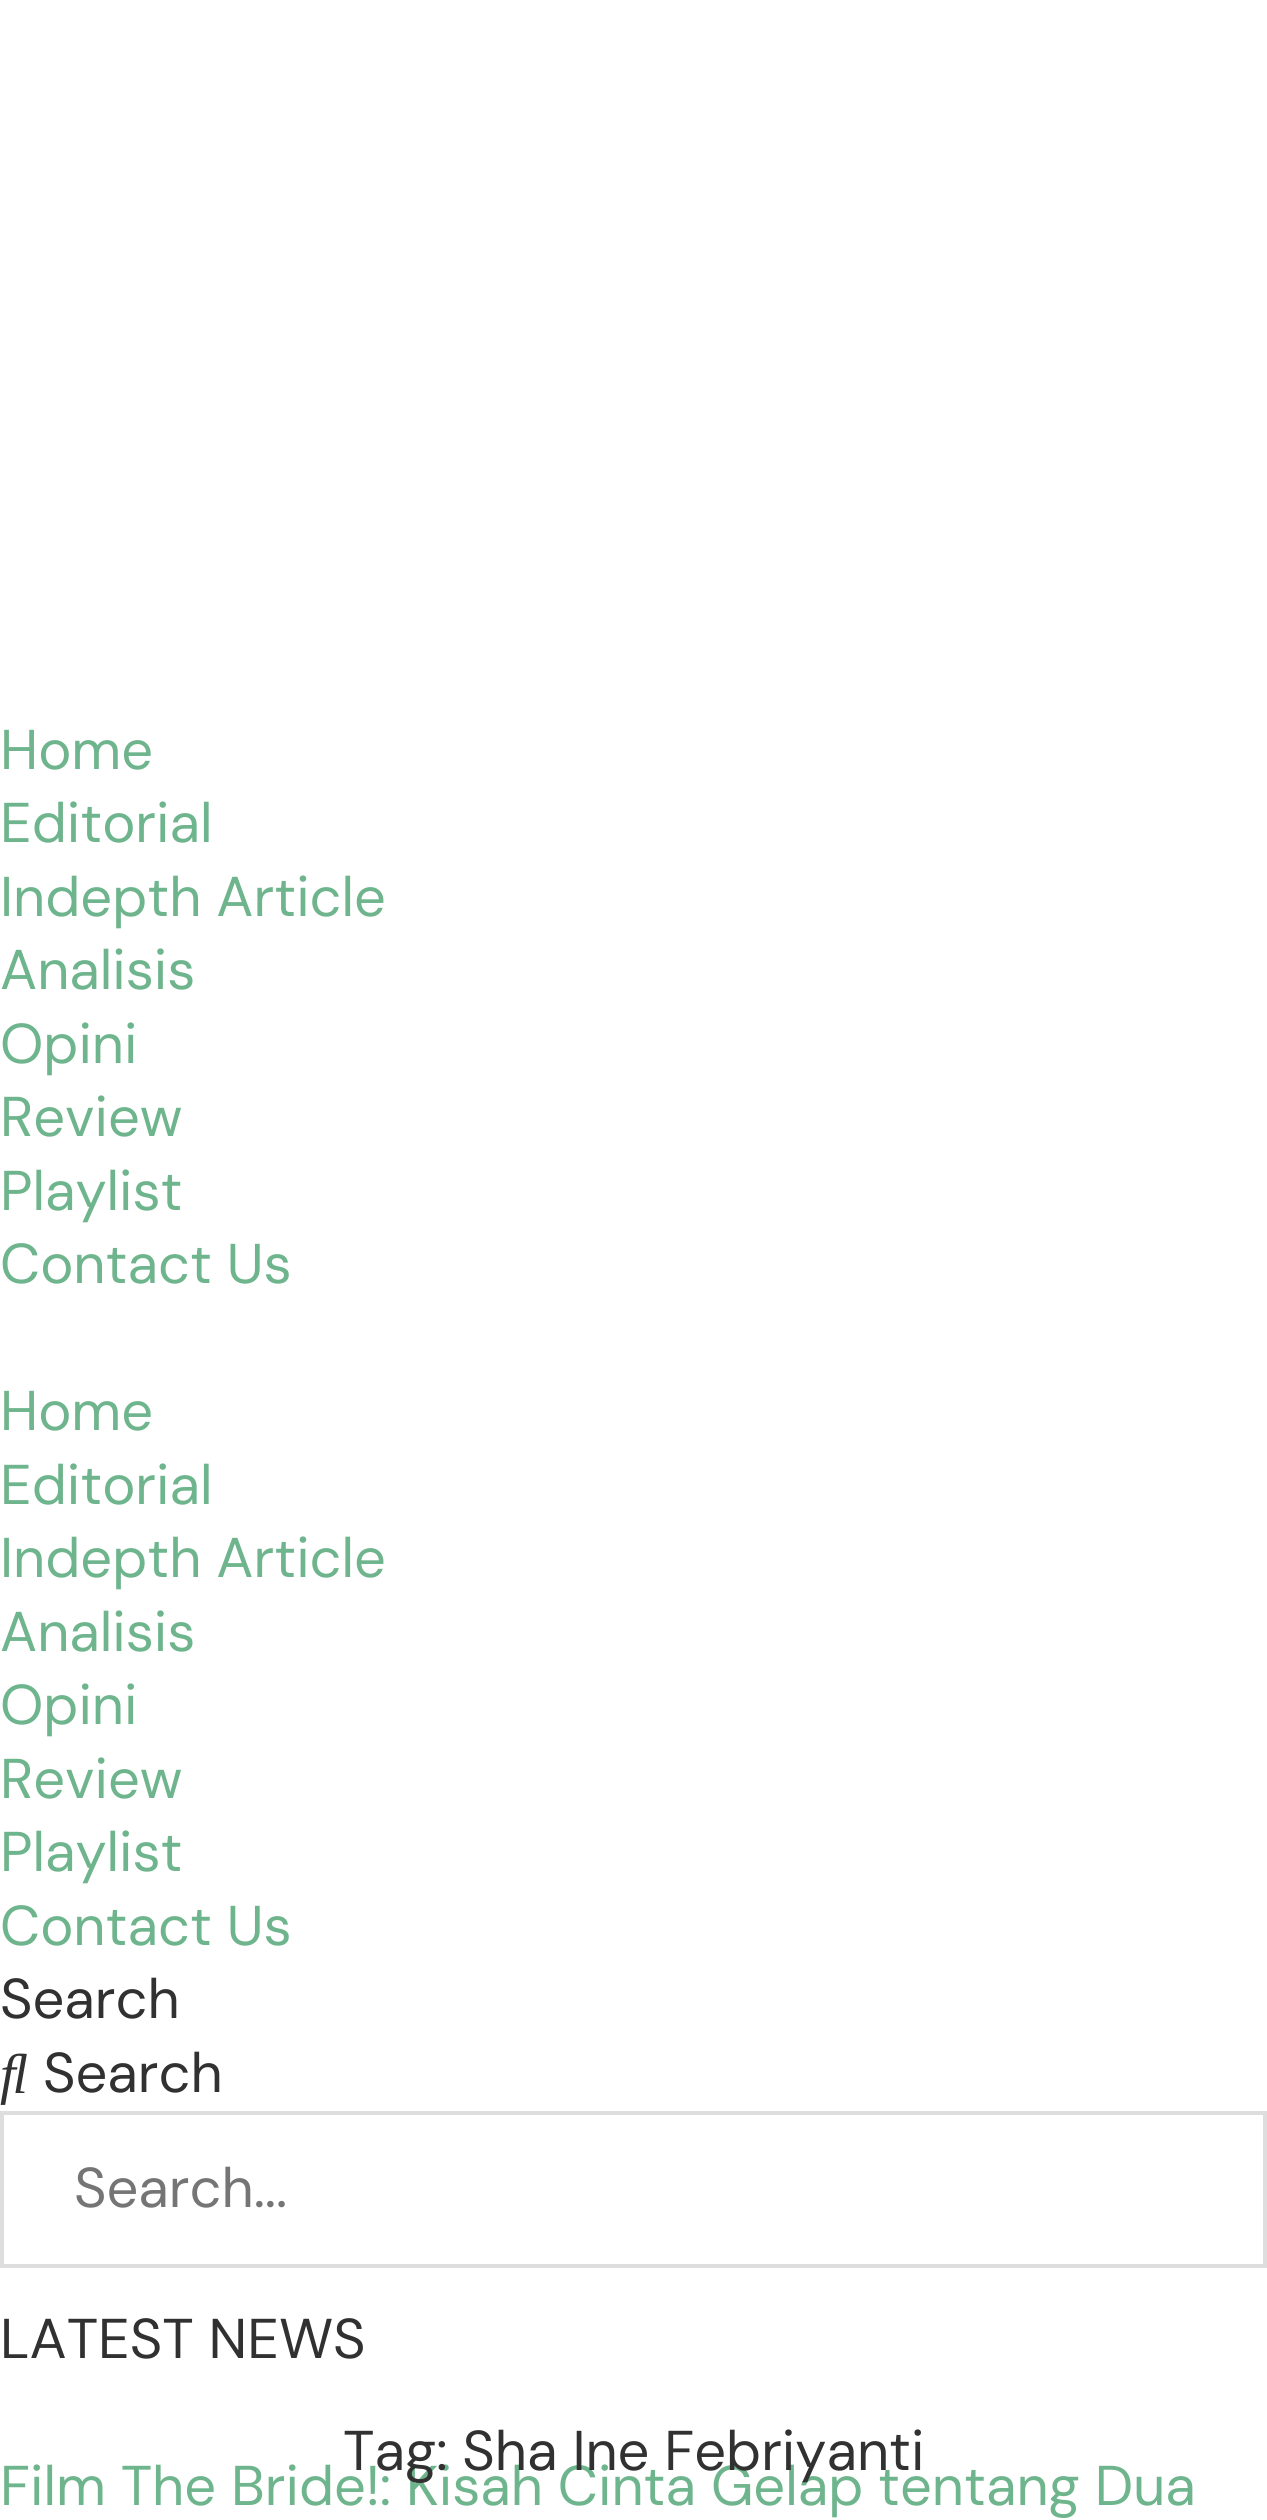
#include <cairo.h>
#include <math.h>
#include <stddef.h>

static cairo_t *ctx;

static void use_color(int r, int g, int b) {
    cairo_set_source_rgb(ctx, r / 255.0, g / 255.0, b / 255.0);
}

static void picture(const char *path, double x, double y, double w, double h) {
    cairo_surface_t *image = cairo_image_surface_create_from_png(path);
    cairo_save(ctx);
    cairo_set_source_surface(ctx, image, x, y);
    cairo_rectangle(ctx, x, y, w, h);
    cairo_fill(ctx);
    cairo_restore(ctx);
    cairo_surface_destroy(image);
}

int main(void) {
    cairo_surface_t *surface = cairo_image_surface_create(CAIRO_FORMAT_RGB24, 1267, 2520);
    ctx = cairo_create(surface);
    cairo_font_options_t *options = cairo_font_options_create();
    cairo_font_options_set_hint_metrics(options, CAIRO_HINT_METRICS_OFF);
    cairo_font_options_set_hint_style(options, CAIRO_HINT_STYLE_NONE);
    cairo_set_font_options(ctx, options);
    cairo_set_miter_limit(ctx, 4);
    use_color(255, 255, 255);
    cairo_paint(ctx);
    cairo_select_font_face(ctx, "DM Sans", CAIRO_FONT_SLANT_NORMAL, CAIRO_FONT_WEIGHT_NORMAL);
    cairo_set_font_size(ctx, 56);
    use_color(110, 180, 140);
    cairo_move_to(ctx, 0, 769);
    cairo_show_text(ctx, "Home");
    cairo_move_to(ctx, 0, 842);
    cairo_show_text(ctx, "Editorial");
    cairo_move_to(ctx, 0, 916);
    cairo_show_text(ctx, "Indepth Article");
    cairo_move_to(ctx, 0, 989);
    cairo_show_text(ctx, "Analisis");
    cairo_move_to(ctx, 0, 1063);
    cairo_show_text(ctx, "Opini");
    cairo_move_to(ctx, 0, 1136);
    cairo_show_text(ctx, "Review");
    cairo_move_to(ctx, 0, 1210);
    cairo_show_text(ctx, "Playlist");
    cairo_move_to(ctx, 0, 1283);
    cairo_show_text(ctx, "Contact Us");
    cairo_move_to(ctx, 0, 1430);
    cairo_show_text(ctx, "Home");
    cairo_move_to(ctx, 0, 1504);
    cairo_show_text(ctx, "Editorial");
    cairo_move_to(ctx, 0, 1577);
    cairo_show_text(ctx, "Indepth Article");
    cairo_move_to(ctx, 0, 1651);
    cairo_show_text(ctx, "Analisis");
    cairo_move_to(ctx, 0, 1724);
    cairo_show_text(ctx, "Opini");
    cairo_move_to(ctx, 0, 1798);
    cairo_show_text(ctx, "Review");
    cairo_move_to(ctx, 0, 1871);
    cairo_show_text(ctx, "Playlist");
    cairo_move_to(ctx, 0, 1945);
    cairo_show_text(ctx, "Contact Us");
    use_color(49, 49, 49);
    cairo_move_to(ctx, 0, 2018);
    cairo_show_text(ctx, "Search");
    picture("img1.png", 0, 2053, 27, 52);
    cairo_move_to(ctx, 43, 2092);
    cairo_show_text(ctx, "Search");
    cairo_rectangle(ctx, 2, 2113, 1263, 153);
    use_color(222, 222, 222);
    cairo_set_line_width(ctx, 4);
    cairo_stroke(ctx);
    use_color(117, 117, 117);
    cairo_move_to(ctx, 74, 2207);
    cairo_show_text(ctx, "Search...");
    use_color(49, 49, 49);
    cairo_move_to(ctx, 0, 2358);
    cairo_show_text(ctx, "LATEST NEWS");
    use_color(110, 180, 140);
    cairo_move_to(ctx, 0, 2505);
    cairo_show_text(ctx, "Film The Bride!: Kisah Cinta Gelap tentang Dua");
    use_color(49, 49, 49);
    cairo_move_to(ctx, 343, 2470);
    cairo_show_text(ctx, "Tag: Sha Ine Febriyanti");
    cairo_surface_write_to_png(surface, "result.png");
    cairo_font_options_destroy(options);
    cairo_destroy(ctx);
    cairo_surface_destroy(surface);
    return 0;
}
